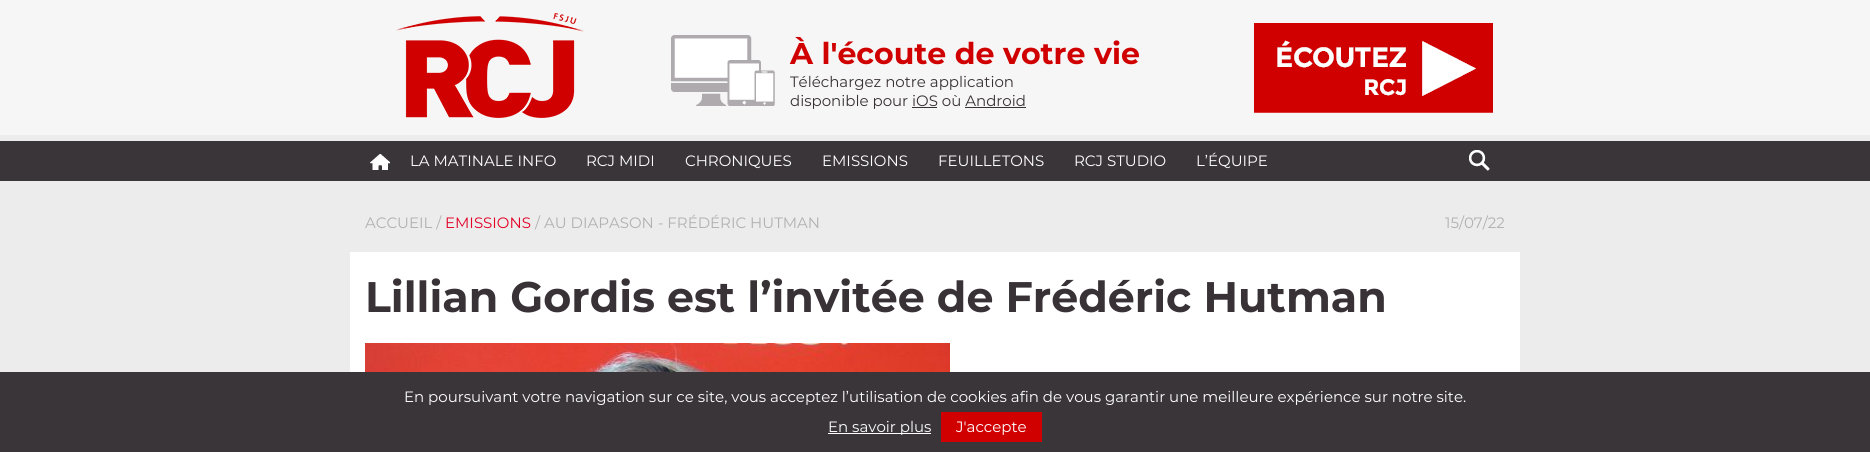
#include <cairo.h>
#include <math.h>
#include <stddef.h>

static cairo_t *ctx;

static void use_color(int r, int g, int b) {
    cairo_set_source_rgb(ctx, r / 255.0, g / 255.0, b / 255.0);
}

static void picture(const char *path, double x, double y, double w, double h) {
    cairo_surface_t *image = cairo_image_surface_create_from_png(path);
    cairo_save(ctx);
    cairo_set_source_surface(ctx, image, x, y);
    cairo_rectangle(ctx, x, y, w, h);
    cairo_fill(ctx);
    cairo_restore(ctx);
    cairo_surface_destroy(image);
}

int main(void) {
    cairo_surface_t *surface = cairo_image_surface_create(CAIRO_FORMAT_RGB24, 1870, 452);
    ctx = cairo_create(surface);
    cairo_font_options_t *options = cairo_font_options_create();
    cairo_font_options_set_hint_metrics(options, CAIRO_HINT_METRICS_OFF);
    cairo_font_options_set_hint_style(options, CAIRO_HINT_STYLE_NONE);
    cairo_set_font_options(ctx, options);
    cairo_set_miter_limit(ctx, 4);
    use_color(236, 236, 236);
    cairo_paint(ctx);
    use_color(246, 246, 246);
    cairo_rectangle(ctx, 0, 0, 1870, 135);
    cairo_fill(ctx);
    picture("img1.png", 396, 13, 188, 105);
    picture("img2.png", 671, 35, 104, 71);
    cairo_select_font_face(ctx, "Montserrat", CAIRO_FONT_SLANT_NORMAL, CAIRO_FONT_WEIGHT_BOLD);
    cairo_set_font_size(ctx, 30);
    use_color(209, 0, 0);
    cairo_move_to(ctx, 790, 64);
    cairo_show_text(ctx, "À l'écoute de votre vie");
    cairo_select_font_face(ctx, "Montserrat", CAIRO_FONT_SLANT_NORMAL, CAIRO_FONT_WEIGHT_NORMAL);
    cairo_set_font_size(ctx, 15);
    use_color(56, 49, 53);
    cairo_move_to(ctx, 790, 87);
    cairo_show_text(ctx, "Téléchargez notre application");
    cairo_move_to(ctx, 790, 106);
    cairo_show_text(ctx, "disponible pour iOS où Android");
    cairo_rectangle(ctx, 912, 107, 25, 1);
    cairo_fill(ctx);
    cairo_rectangle(ctx, 965, 107, 61, 1);
    cairo_fill(ctx);
    picture("img3.png", 1254, 23, 239, 90);
    use_color(58, 53, 57);
    cairo_rectangle(ctx, 0, 141, 1870, 40);
    cairo_fill(ctx);
    picture("img4.png", 370, 154, 20, 16);
    use_color(255, 255, 255);
    cairo_move_to(ctx, 410, 166);
    cairo_show_text(ctx, "LA MATINALE INFO");
    cairo_move_to(ctx, 586, 166);
    cairo_show_text(ctx, "RCJ MIDI");
    cairo_move_to(ctx, 685, 166);
    cairo_show_text(ctx, "CHRONIQUES");
    cairo_move_to(ctx, 822, 166);
    cairo_show_text(ctx, "EMISSIONS");
    cairo_move_to(ctx, 938, 166);
    cairo_show_text(ctx, "FEUILLETONS");
    cairo_move_to(ctx, 1074, 166);
    cairo_show_text(ctx, "RCJ STUDIO");
    cairo_move_to(ctx, 1196, 166);
    cairo_show_text(ctx, "L’ÉQUIPE");
    picture("img5.png", 1469, 150, 21, 21);
    use_color(178, 176, 178);
    cairo_move_to(ctx, 365, 228);
    cairo_show_text(ctx, "ACCUEIL /");
    use_color(226, 0, 37);
    cairo_move_to(ctx, 445, 228);
    cairo_show_text(ctx, "EMISSIONS");
    use_color(178, 176, 178);
    cairo_move_to(ctx, 535, 228);
    cairo_show_text(ctx, "/ AU DIAPASON - FRÉDÉRIC HUTMAN");
    cairo_move_to(ctx, 1445, 228);
    cairo_show_text(ctx, "15/07/22");
    use_color(255, 255, 255);
    cairo_rectangle(ctx, 350, 252, 1170, 120);
    cairo_fill(ctx);
    cairo_select_font_face(ctx, "Montserrat", CAIRO_FONT_SLANT_NORMAL, CAIRO_FONT_WEIGHT_BOLD);
    cairo_set_font_size(ctx, 42.75);
    use_color(56, 49, 53);
    cairo_move_to(ctx, 365, 312);
    cairo_show_text(ctx, "Lillian Gordis est l’invitée de Frédéric Hutman");
    picture("img6.png", 365, 343, 585, 29);
    use_color(58, 53, 57);
    cairo_rectangle(ctx, 0, 372, 1870, 80);
    cairo_fill(ctx);
    cairo_select_font_face(ctx, "Montserrat", CAIRO_FONT_SLANT_NORMAL, CAIRO_FONT_WEIGHT_NORMAL);
    cairo_set_font_size(ctx, 15);
    use_color(255, 255, 255);
    cairo_move_to(ctx, 404, 402);
    cairo_show_text(ctx, "En poursuivant votre navigation sur ce site, vous acceptez l’utilisation de cookies afin de vous garantir une meilleure expérience sur notre site.");
    cairo_rectangle(ctx, 828, 433, 103, 1);
    cairo_fill(ctx);
    cairo_move_to(ctx, 828, 432);
    cairo_show_text(ctx, "En savoir plus");
    use_color(209, 0, 0);
    cairo_rectangle(ctx, 941, 412, 101, 30);
    cairo_fill(ctx);
    use_color(255, 255, 255);
    cairo_move_to(ctx, 956, 432);
    cairo_show_text(ctx, "J'accepte");
    cairo_surface_write_to_png(surface, "result.png");
    cairo_font_options_destroy(options);
    cairo_destroy(ctx);
    cairo_surface_destroy(surface);
    return 0;
}
